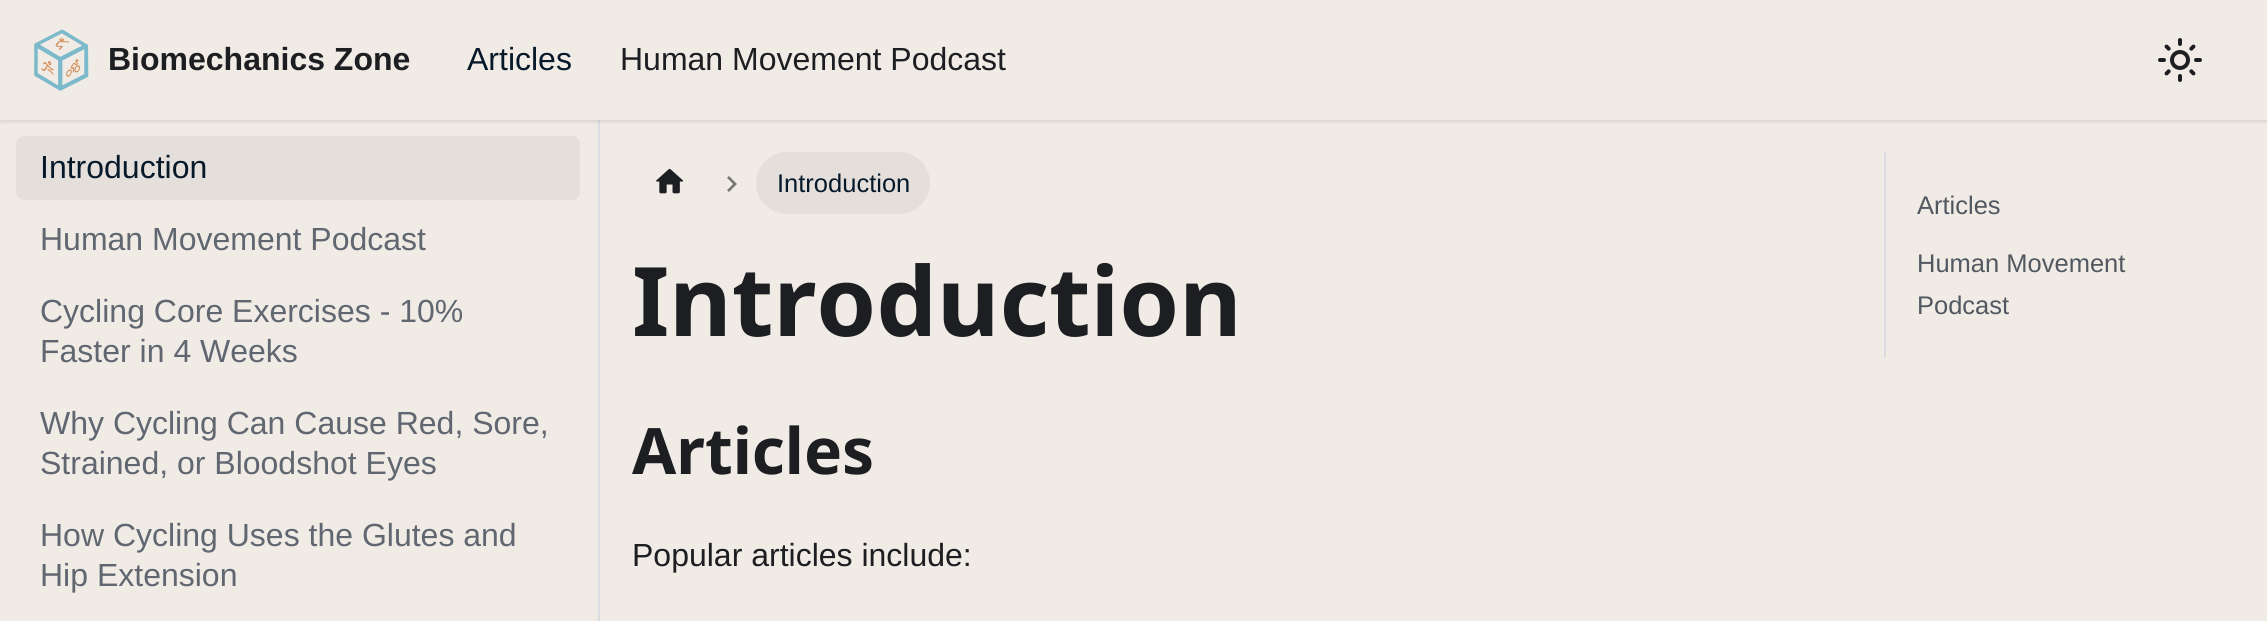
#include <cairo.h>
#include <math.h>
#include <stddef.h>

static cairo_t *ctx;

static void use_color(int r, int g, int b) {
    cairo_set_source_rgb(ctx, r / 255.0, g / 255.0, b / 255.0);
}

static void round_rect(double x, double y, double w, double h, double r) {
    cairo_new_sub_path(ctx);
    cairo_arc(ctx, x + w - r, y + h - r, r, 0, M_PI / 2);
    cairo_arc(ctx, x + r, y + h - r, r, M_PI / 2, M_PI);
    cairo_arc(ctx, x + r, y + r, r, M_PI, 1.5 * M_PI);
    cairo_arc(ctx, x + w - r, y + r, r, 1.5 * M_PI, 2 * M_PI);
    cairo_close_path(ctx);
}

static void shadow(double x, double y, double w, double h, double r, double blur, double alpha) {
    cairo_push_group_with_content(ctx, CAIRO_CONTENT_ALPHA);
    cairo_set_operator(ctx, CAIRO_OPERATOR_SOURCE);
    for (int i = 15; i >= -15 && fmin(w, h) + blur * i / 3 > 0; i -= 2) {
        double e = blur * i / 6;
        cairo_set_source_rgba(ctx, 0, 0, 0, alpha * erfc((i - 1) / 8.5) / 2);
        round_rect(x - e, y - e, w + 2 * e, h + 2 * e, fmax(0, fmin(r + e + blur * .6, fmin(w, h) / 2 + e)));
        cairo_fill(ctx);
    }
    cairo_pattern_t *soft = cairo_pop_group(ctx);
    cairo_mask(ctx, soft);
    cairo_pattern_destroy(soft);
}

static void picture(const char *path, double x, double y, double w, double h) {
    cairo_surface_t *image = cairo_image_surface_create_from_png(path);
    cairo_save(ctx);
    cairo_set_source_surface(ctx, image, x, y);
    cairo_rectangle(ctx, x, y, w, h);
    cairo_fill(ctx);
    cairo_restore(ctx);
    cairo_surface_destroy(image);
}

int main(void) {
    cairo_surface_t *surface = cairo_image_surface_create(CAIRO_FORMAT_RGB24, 2267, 621);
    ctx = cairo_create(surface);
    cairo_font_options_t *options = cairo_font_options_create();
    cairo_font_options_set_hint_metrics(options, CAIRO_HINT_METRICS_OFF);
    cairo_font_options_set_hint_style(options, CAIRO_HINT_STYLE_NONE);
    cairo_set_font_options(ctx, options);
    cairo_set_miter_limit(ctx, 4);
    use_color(241, 235, 230);
    cairo_paint(ctx);
    use_color(218, 221, 225);
    cairo_rectangle(ctx, 598, 120, 2, 501);
    cairo_fill(ctx);
    use_color(0, 0, 0);
    shadow(0, 2, 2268, 120, 0, 2, 0.1);
    use_color(241, 235, 230);
    cairo_rectangle(ctx, 0, 0, 2267, 120);
    cairo_fill(ctx);
    picture("img1.png", 34, 29, 55, 62);
    cairo_select_font_face(ctx, "Liberation Sans", CAIRO_FONT_SLANT_NORMAL, CAIRO_FONT_WEIGHT_BOLD);
    cairo_set_font_size(ctx, 32);
    use_color(28, 30, 33);
    cairo_move_to(ctx, 108, 70);
    cairo_show_text(ctx, "Biomechanics Zone");
    cairo_select_font_face(ctx, "Liberation Sans", CAIRO_FONT_SLANT_NORMAL, CAIRO_FONT_WEIGHT_NORMAL);
    use_color(6, 25, 42);
    cairo_move_to(ctx, 467, 70);
    cairo_show_text(ctx, "Articles");
    use_color(28, 30, 33);
    cairo_move_to(ctx, 620, 70);
    cairo_show_text(ctx, "Human Movement Podcast");
    picture("img2.png", 2158, 38, 44, 44);
    use_color(229, 223, 219);
    round_rect(16, 136, 564, 64, 8);
    cairo_fill(ctx);
    use_color(6, 25, 42);
    cairo_move_to(ctx, 40, 178);
    cairo_show_text(ctx, "Introduction");
    use_color(96, 103, 112);
    cairo_move_to(ctx, 40, 250);
    cairo_show_text(ctx, "Human Movement Podcast");
    cairo_move_to(ctx, 40, 322);
    cairo_show_text(ctx, "Cycling Core Exercises - 10%");
    cairo_move_to(ctx, 40, 362);
    cairo_show_text(ctx, "Faster in 4 Weeks");
    cairo_move_to(ctx, 40, 434);
    cairo_show_text(ctx, "Why Cycling Can Cause Red, Sore,");
    cairo_move_to(ctx, 40, 474);
    cairo_show_text(ctx, "Strained, or Bloodshot Eyes");
    cairo_move_to(ctx, 40, 546);
    cairo_show_text(ctx, "How Cycling Uses the Glutes and");
    cairo_move_to(ctx, 40, 586);
    cairo_show_text(ctx, "Hip Extension");
    picture("img3.png", 656, 168, 27, 26);
    picture("img4.png", 727, 176, 10, 16);
    use_color(229, 223, 219);
    round_rect(756, 152, 174, 62, 31);
    cairo_fill(ctx);
    cairo_set_font_size(ctx, 25.5);
    use_color(6, 25, 42);
    cairo_move_to(ctx, 777, 192);
    cairo_show_text(ctx, "Introduction");
    cairo_select_font_face(ctx, "Noto Sans", CAIRO_FONT_SLANT_NORMAL, CAIRO_FONT_WEIGHT_BOLD);
    cairo_set_font_size(ctx, 96);
    use_color(28, 30, 33);
    cairo_move_to(ctx, 632, 336);
    cairo_show_text(ctx, "Introduction");
    cairo_set_font_size(ctx, 64);
    cairo_move_to(ctx, 632, 474);
    cairo_show_text(ctx, "Articles");
    cairo_select_font_face(ctx, "Liberation Sans", CAIRO_FONT_SLANT_NORMAL, CAIRO_FONT_WEIGHT_NORMAL);
    cairo_set_font_size(ctx, 32);
    cairo_move_to(ctx, 632, 566);
    cairo_show_text(ctx, "Popular articles include:");
    use_color(218, 221, 225);
    cairo_rectangle(ctx, 1884, 152, 2, 206);
    cairo_fill(ctx);
    cairo_set_font_size(ctx, 25.5);
    use_color(82, 88, 96);
    cairo_move_to(ctx, 1917, 214);
    cairo_show_text(ctx, "Articles");
    cairo_move_to(ctx, 1917, 272);
    cairo_show_text(ctx, "Human Movement");
    cairo_move_to(ctx, 1917, 314);
    cairo_show_text(ctx, "Podcast");
    cairo_surface_write_to_png(surface, "result.png");
    cairo_font_options_destroy(options);
    cairo_destroy(ctx);
    cairo_surface_destroy(surface);
    return 0;
}
